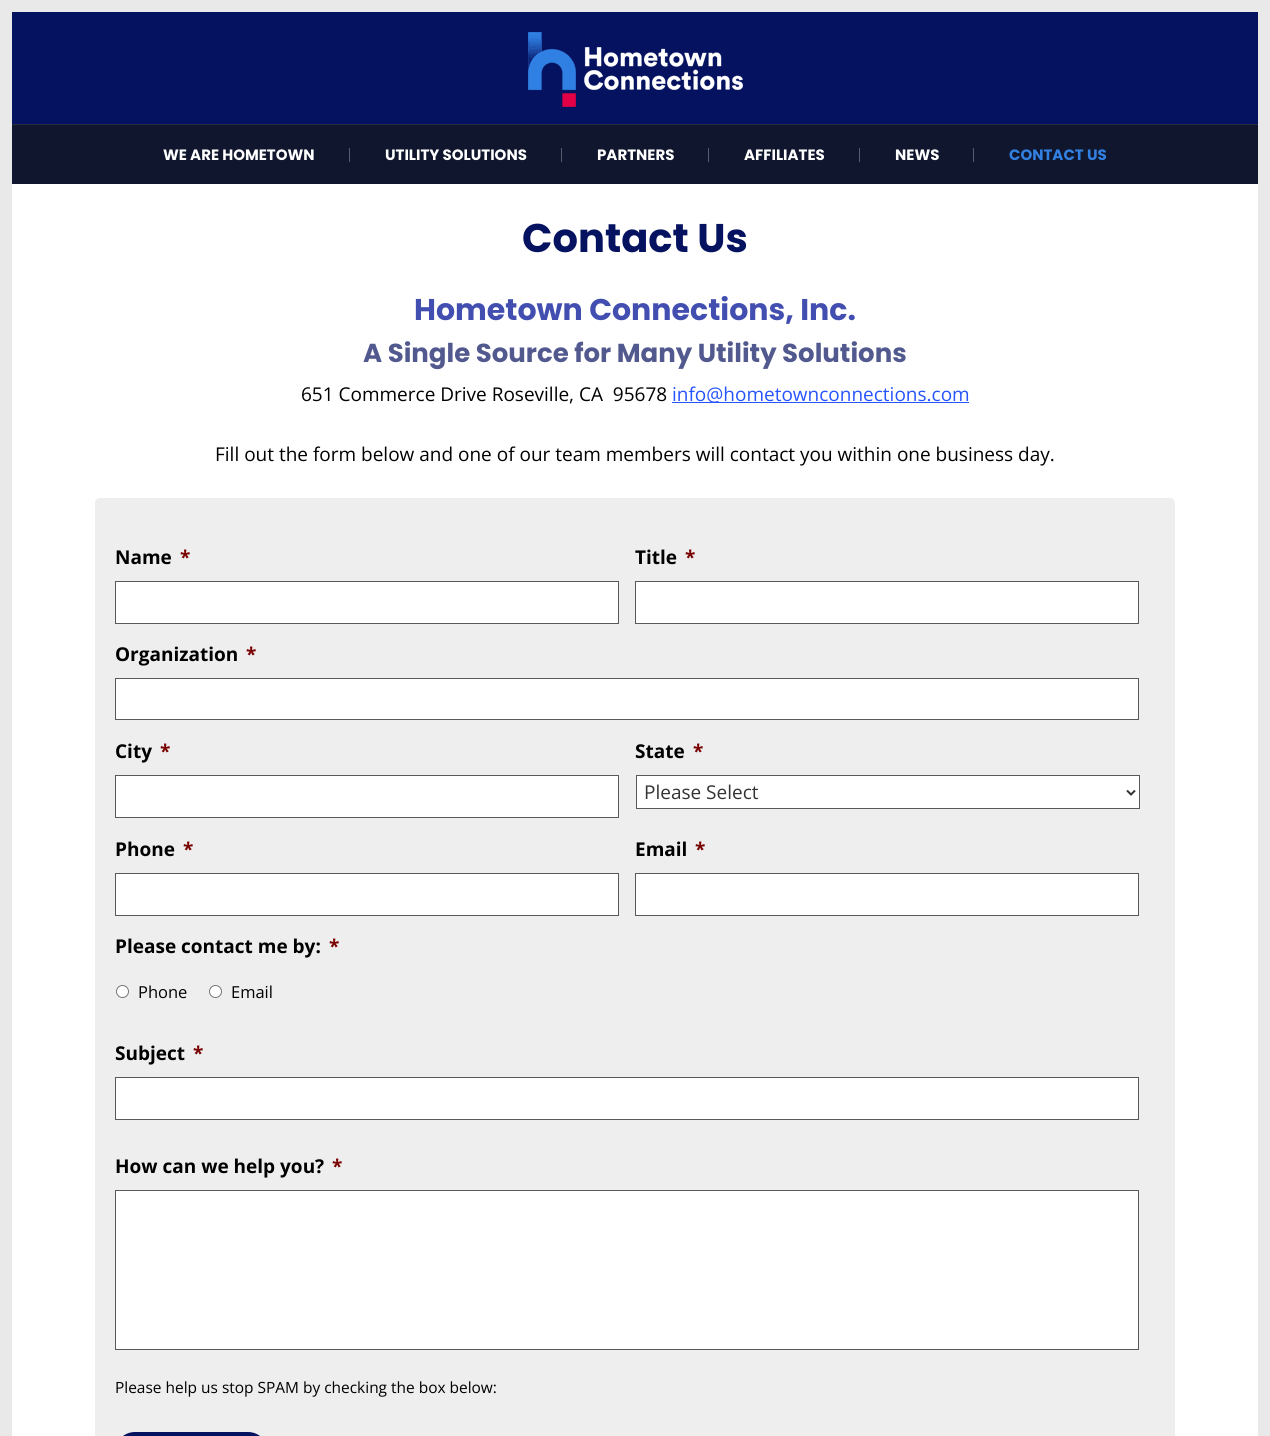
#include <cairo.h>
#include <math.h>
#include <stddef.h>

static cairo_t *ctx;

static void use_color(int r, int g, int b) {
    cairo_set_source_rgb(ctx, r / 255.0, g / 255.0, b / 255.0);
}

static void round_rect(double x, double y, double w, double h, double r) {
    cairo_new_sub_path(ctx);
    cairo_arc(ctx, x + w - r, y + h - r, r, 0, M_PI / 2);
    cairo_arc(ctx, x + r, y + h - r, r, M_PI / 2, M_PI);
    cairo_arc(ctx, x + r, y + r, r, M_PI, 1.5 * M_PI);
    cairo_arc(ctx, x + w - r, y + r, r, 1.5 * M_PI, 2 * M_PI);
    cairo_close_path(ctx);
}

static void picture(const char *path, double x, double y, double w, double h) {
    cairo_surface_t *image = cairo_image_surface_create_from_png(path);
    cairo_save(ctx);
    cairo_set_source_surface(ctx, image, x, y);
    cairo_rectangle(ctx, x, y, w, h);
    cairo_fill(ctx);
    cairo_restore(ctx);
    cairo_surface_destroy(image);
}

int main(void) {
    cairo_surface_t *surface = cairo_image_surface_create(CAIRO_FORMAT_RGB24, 1270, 1436);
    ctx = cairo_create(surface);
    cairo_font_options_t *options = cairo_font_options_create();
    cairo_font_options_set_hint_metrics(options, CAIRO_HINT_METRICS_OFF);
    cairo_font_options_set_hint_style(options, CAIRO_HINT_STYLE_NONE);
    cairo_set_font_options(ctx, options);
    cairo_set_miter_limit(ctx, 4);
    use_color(233, 233, 233);
    cairo_paint(ctx);
    use_color(255, 255, 255);
    cairo_rectangle(ctx, 12, 184, 1246, 1252);
    cairo_fill(ctx);
    use_color(5, 18, 96);
    cairo_rectangle(ctx, 12, 12, 1246, 112);
    cairo_fill(ctx);
    picture("img1.png", 528, 32, 215, 75);
    use_color(15, 22, 45);
    cairo_rectangle(ctx, 12, 125, 1246, 59);
    cairo_fill(ctx);
    use_color(39, 46, 66);
    cairo_rectangle(ctx, 12, 124, 1246, 1);
    cairo_fill(ctx);
    cairo_select_font_face(ctx, "Poppins", CAIRO_FONT_SLANT_NORMAL, CAIRO_FONT_WEIGHT_BOLD);
    cairo_set_font_size(ctx, 15);
    use_color(255, 255, 255);
    cairo_move_to(ctx, 163, 160);
    cairo_show_text(ctx, "WE ARE HOMETOWN");
    use_color(87, 92, 108);
    cairo_rectangle(ctx, 349, 148, 1, 14);
    cairo_fill(ctx);
    use_color(255, 255, 255);
    cairo_move_to(ctx, 385, 160);
    cairo_show_text(ctx, "UTILITY SOLUTIONS");
    use_color(87, 92, 108);
    cairo_rectangle(ctx, 561, 148, 1, 14);
    cairo_fill(ctx);
    use_color(255, 255, 255);
    cairo_move_to(ctx, 597, 160);
    cairo_show_text(ctx, "PARTNERS");
    use_color(87, 92, 108);
    cairo_rectangle(ctx, 708, 148, 1, 14);
    cairo_fill(ctx);
    use_color(255, 255, 255);
    cairo_move_to(ctx, 744, 160);
    cairo_show_text(ctx, "AFFILIATES");
    use_color(87, 92, 108);
    cairo_rectangle(ctx, 859, 148, 1, 14);
    cairo_fill(ctx);
    use_color(255, 255, 255);
    cairo_move_to(ctx, 895, 160);
    cairo_show_text(ctx, "NEWS");
    use_color(87, 92, 108);
    cairo_rectangle(ctx, 973, 148, 1, 14);
    cairo_fill(ctx);
    use_color(50, 129, 226);
    cairo_move_to(ctx, 1009, 160);
    cairo_show_text(ctx, "CONTACT US");
    cairo_set_font_size(ctx, 40);
    use_color(5, 18, 96);
    cairo_move_to(ctx, 522, 252);
    cairo_show_text(ctx, "Contact Us");
    cairo_set_font_size(ctx, 30);
    use_color(66, 78, 176);
    cairo_move_to(ctx, 414, 320);
    cairo_show_text(ctx, "Hometown Connections, Inc.");
    cairo_set_font_size(ctx, 26);
    use_color(82, 89, 142);
    cairo_move_to(ctx, 363, 362);
    cairo_show_text(ctx, "A Single Source for Many Utility Solutions");
    cairo_select_font_face(ctx, "Open Sans", CAIRO_FONT_SLANT_NORMAL, CAIRO_FONT_WEIGHT_NORMAL);
    cairo_set_font_size(ctx, 19);
    use_color(0, 0, 0);
    cairo_move_to(ctx, 301, 401);
    cairo_show_text(ctx, "651 Commerce Drive Roseville, CA  95678");
    use_color(38, 84, 253);
    cairo_rectangle(ctx, 672, 402, 297, 1);
    cairo_fill(ctx);
    cairo_move_to(ctx, 672, 401);
    cairo_show_text(ctx, "info@hometownconnections.com");
    use_color(0, 0, 0);
    cairo_move_to(ctx, 215, 461);
    cairo_show_text(ctx, "Fill out the form below and one of our team members will contact you within one business day.");
    use_color(238, 238, 238);
    round_rect(95, 498, 1080, 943, 5);
    cairo_fill(ctx);
    cairo_select_font_face(ctx, "Open Sans", CAIRO_FONT_SLANT_NORMAL, CAIRO_FONT_WEIGHT_BOLD);
    use_color(0, 0, 0);
    cairo_move_to(ctx, 115, 564);
    cairo_show_text(ctx, "Name");
    use_color(121, 0, 0);
    cairo_move_to(ctx, 180, 564);
    cairo_show_text(ctx, "*");
    use_color(255, 255, 255);
    cairo_rectangle(ctx, 115.5, 581.5, 503, 42);
    cairo_fill_preserve(ctx);
    use_color(89, 89, 89);
    cairo_set_line_width(ctx, 1);
    cairo_stroke(ctx);
    use_color(0, 0, 0);
    cairo_move_to(ctx, 635, 564);
    cairo_show_text(ctx, "Title");
    use_color(121, 0, 0);
    cairo_move_to(ctx, 685, 564);
    cairo_show_text(ctx, "*");
    use_color(255, 255, 255);
    cairo_rectangle(ctx, 635.5, 581.5, 503, 42);
    cairo_fill_preserve(ctx);
    use_color(89, 89, 89);
    cairo_stroke(ctx);
    use_color(0, 0, 0);
    cairo_move_to(ctx, 115, 661);
    cairo_show_text(ctx, "Organization");
    use_color(121, 0, 0);
    cairo_move_to(ctx, 246, 661);
    cairo_show_text(ctx, "*");
    use_color(255, 255, 255);
    cairo_rectangle(ctx, 115.5, 678.5, 1023, 41);
    cairo_fill_preserve(ctx);
    use_color(89, 89, 89);
    cairo_stroke(ctx);
    use_color(0, 0, 0);
    cairo_move_to(ctx, 115, 758);
    cairo_show_text(ctx, "City");
    use_color(121, 0, 0);
    cairo_move_to(ctx, 160, 758);
    cairo_show_text(ctx, "*");
    use_color(255, 255, 255);
    cairo_rectangle(ctx, 115.5, 775.5, 503, 42);
    cairo_fill_preserve(ctx);
    use_color(89, 89, 89);
    cairo_stroke(ctx);
    use_color(0, 0, 0);
    cairo_move_to(ctx, 635, 758);
    cairo_show_text(ctx, "State");
    use_color(121, 0, 0);
    cairo_move_to(ctx, 693, 758);
    cairo_show_text(ctx, "*");
    use_color(255, 255, 255);
    cairo_rectangle(ctx, 636.5, 775.5, 503, 33);
    cairo_fill_preserve(ctx);
    use_color(89, 89, 89);
    cairo_stroke(ctx);
    cairo_new_path(ctx);
    cairo_move_to(ctx, 1127, 790.5);
    cairo_line_to(ctx, 1131, 794.5);
    cairo_line_to(ctx, 1135, 790.5);
    use_color(51, 51, 51);
    cairo_set_line_width(ctx, 2);
    cairo_stroke(ctx);
    cairo_select_font_face(ctx, "Open Sans", CAIRO_FONT_SLANT_NORMAL, CAIRO_FONT_WEIGHT_NORMAL);
    cairo_move_to(ctx, 644, 799);
    cairo_show_text(ctx, "Please Select");
    cairo_select_font_face(ctx, "Open Sans", CAIRO_FONT_SLANT_NORMAL, CAIRO_FONT_WEIGHT_BOLD);
    use_color(0, 0, 0);
    cairo_move_to(ctx, 115, 856);
    cairo_show_text(ctx, "Phone");
    use_color(121, 0, 0);
    cairo_move_to(ctx, 183, 856);
    cairo_show_text(ctx, "*");
    use_color(255, 255, 255);
    cairo_rectangle(ctx, 115.5, 873.5, 503, 42);
    cairo_fill_preserve(ctx);
    use_color(89, 89, 89);
    cairo_set_line_width(ctx, 1);
    cairo_stroke(ctx);
    use_color(0, 0, 0);
    cairo_move_to(ctx, 635, 856);
    cairo_show_text(ctx, "Email");
    use_color(121, 0, 0);
    cairo_move_to(ctx, 695, 856);
    cairo_show_text(ctx, "*");
    use_color(255, 255, 255);
    cairo_rectangle(ctx, 635.5, 873.5, 503, 42);
    cairo_fill_preserve(ctx);
    use_color(89, 89, 89);
    cairo_stroke(ctx);
    use_color(0, 0, 0);
    cairo_move_to(ctx, 115, 953);
    cairo_show_text(ctx, "Please contact me by:");
    use_color(121, 0, 0);
    cairo_move_to(ctx, 329, 953);
    cairo_show_text(ctx, "*");
    use_color(255, 255, 255);
    cairo_new_path(ctx);
    cairo_arc(ctx, 122.5, 991.5, 6, 0, 2 * M_PI);
    cairo_fill_preserve(ctx);
    use_color(118, 118, 118);
    cairo_stroke(ctx);
    cairo_select_font_face(ctx, "Open Sans", CAIRO_FONT_SLANT_NORMAL, CAIRO_FONT_WEIGHT_NORMAL);
    cairo_set_font_size(ctx, 16.5);
    use_color(0, 0, 0);
    cairo_move_to(ctx, 138, 998);
    cairo_show_text(ctx, "Phone");
    use_color(255, 255, 255);
    cairo_new_path(ctx);
    cairo_arc(ctx, 215.5, 991.5, 6, 0, 2 * M_PI);
    cairo_fill_preserve(ctx);
    use_color(118, 118, 118);
    cairo_stroke(ctx);
    use_color(0, 0, 0);
    cairo_move_to(ctx, 231, 998);
    cairo_show_text(ctx, "Email");
    cairo_select_font_face(ctx, "Open Sans", CAIRO_FONT_SLANT_NORMAL, CAIRO_FONT_WEIGHT_BOLD);
    cairo_set_font_size(ctx, 19);
    cairo_move_to(ctx, 115, 1060);
    cairo_show_text(ctx, "Subject");
    use_color(121, 0, 0);
    cairo_move_to(ctx, 193, 1060);
    cairo_show_text(ctx, "*");
    use_color(255, 255, 255);
    cairo_rectangle(ctx, 115.5, 1077.5, 1023, 42);
    cairo_fill_preserve(ctx);
    use_color(89, 89, 89);
    cairo_stroke(ctx);
    use_color(0, 0, 0);
    cairo_move_to(ctx, 115, 1173);
    cairo_show_text(ctx, "How can we help you?");
    use_color(121, 0, 0);
    cairo_move_to(ctx, 332, 1173);
    cairo_show_text(ctx, "*");
    use_color(255, 255, 255);
    cairo_rectangle(ctx, 115.5, 1190.5, 1023, 159);
    cairo_fill_preserve(ctx);
    use_color(89, 89, 89);
    cairo_stroke(ctx);
    cairo_select_font_face(ctx, "Open Sans", CAIRO_FONT_SLANT_NORMAL, CAIRO_FONT_WEIGHT_NORMAL);
    cairo_set_font_size(ctx, 15.45);
    use_color(0, 0, 0);
    cairo_move_to(ctx, 115, 1393);
    cairo_show_text(ctx, "Please help us stop SPAM by checking the box below:");
    use_color(5, 18, 96);
    round_rect(115, 1432, 153, 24, 20);
    cairo_fill(ctx);
    cairo_surface_write_to_png(surface, "result.png");
    cairo_font_options_destroy(options);
    cairo_destroy(ctx);
    cairo_surface_destroy(surface);
    return 0;
}
